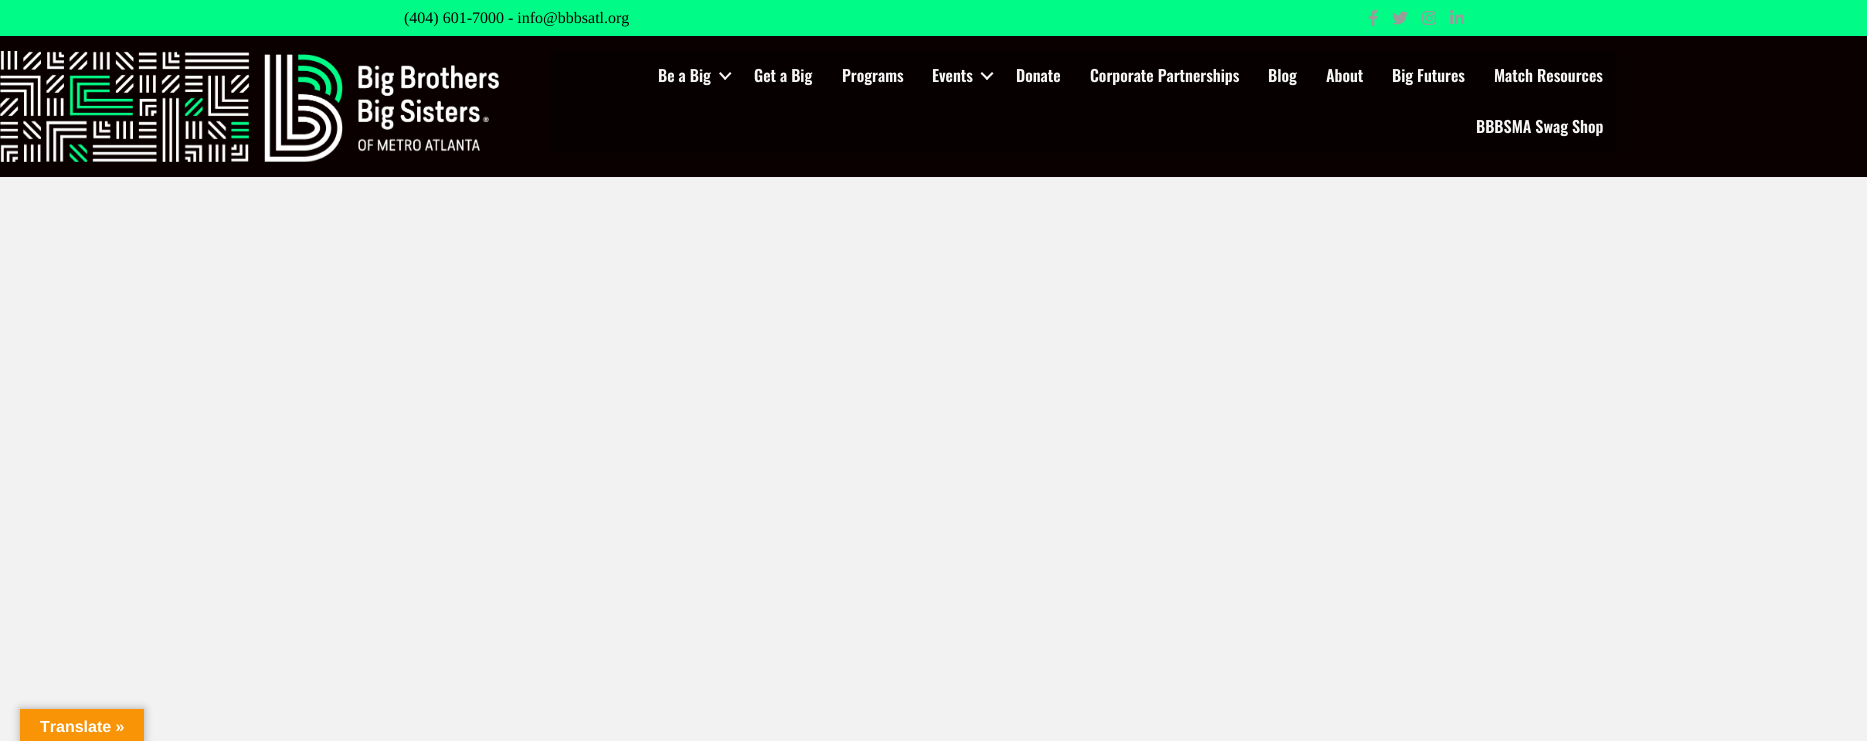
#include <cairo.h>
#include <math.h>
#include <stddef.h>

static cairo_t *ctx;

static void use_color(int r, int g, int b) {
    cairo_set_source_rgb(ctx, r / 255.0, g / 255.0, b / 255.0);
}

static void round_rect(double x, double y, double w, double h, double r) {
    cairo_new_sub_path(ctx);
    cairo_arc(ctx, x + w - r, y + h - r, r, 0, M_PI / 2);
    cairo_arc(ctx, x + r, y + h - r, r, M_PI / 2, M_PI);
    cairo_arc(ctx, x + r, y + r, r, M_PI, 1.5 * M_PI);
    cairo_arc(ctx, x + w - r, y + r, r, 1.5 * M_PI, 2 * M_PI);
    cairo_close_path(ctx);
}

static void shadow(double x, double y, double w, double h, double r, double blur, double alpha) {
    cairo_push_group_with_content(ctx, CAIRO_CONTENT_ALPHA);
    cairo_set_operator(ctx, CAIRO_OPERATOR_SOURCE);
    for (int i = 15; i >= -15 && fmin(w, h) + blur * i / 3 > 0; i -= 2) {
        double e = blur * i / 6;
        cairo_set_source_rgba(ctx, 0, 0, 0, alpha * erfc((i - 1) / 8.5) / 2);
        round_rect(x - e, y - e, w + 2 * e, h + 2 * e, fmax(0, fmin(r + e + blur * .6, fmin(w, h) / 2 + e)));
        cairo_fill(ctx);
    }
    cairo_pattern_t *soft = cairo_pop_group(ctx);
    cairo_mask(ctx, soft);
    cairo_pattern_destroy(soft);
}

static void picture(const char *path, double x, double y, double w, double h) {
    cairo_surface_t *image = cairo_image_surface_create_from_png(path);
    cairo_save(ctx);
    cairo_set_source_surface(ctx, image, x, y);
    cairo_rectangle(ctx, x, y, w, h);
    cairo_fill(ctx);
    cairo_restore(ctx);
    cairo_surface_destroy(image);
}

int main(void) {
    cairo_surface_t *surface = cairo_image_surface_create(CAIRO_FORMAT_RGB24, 1867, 741);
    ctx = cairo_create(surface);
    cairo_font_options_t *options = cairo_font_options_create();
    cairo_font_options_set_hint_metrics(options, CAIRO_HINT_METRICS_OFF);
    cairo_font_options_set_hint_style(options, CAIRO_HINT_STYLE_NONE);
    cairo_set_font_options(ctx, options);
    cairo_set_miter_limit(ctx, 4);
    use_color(242, 242, 242);
    cairo_paint(ctx);
    use_color(0, 252, 135);
    cairo_rectangle(ctx, 0, 0, 1867, 36);
    cairo_fill(ctx);
    cairo_select_font_face(ctx, "Liberation Serif", CAIRO_FONT_SLANT_NORMAL, CAIRO_FONT_WEIGHT_NORMAL);
    cairo_set_font_size(ctx, 16);
    use_color(0, 0, 0);
    cairo_move_to(ctx, 404, 23);
    cairo_show_text(ctx, "(404) 601-7000 - info@bbbsatl.org");
    picture("img1.png", 1368, 10, 10, 16);
    picture("img2.png", 1392, 11, 16, 14);
    picture("img3.png", 1422, 11, 15, 14);
    picture("img4.png", 1450, 10, 14, 14);
    use_color(10, 0, 0);
    cairo_rectangle(ctx, 0, 36, 1867, 141);
    cairo_fill(ctx);
    picture("img5.png", 0, 51, 499, 111);
    use_color(7, 0, 0);
    cairo_rectangle(ctx, 549, 50, 1068, 103);
    cairo_fill(ctx);
    cairo_select_font_face(ctx, "Oswald SemiBold", CAIRO_FONT_SLANT_NORMAL, CAIRO_FONT_WEIGHT_NORMAL);
    use_color(245, 245, 245);
    cairo_move_to(ctx, 658, 82);
    cairo_show_text(ctx, "Be a Big");
    cairo_new_path(ctx);
    cairo_move_to(ctx, 730, 72);
    cairo_line_to(ctx, 731.5, 73.5);
    cairo_line_to(ctx, 725, 80);
    cairo_line_to(ctx, 724, 78.5);
    cairo_close_path(ctx);
    cairo_fill(ctx);
    cairo_new_path(ctx);
    cairo_move_to(ctx, 720.5, 72);
    cairo_line_to(ctx, 726.5, 78.5);
    cairo_line_to(ctx, 725, 80);
    cairo_line_to(ctx, 719, 73.5);
    cairo_close_path(ctx);
    cairo_fill(ctx);
    cairo_move_to(ctx, 754, 82);
    cairo_show_text(ctx, "Get a Big");
    cairo_move_to(ctx, 842, 82);
    cairo_show_text(ctx, "Programs");
    cairo_move_to(ctx, 932, 82);
    cairo_show_text(ctx, "Events");
    cairo_new_path(ctx);
    cairo_move_to(ctx, 992, 72);
    cairo_line_to(ctx, 993.5, 73.5);
    cairo_line_to(ctx, 987, 80);
    cairo_line_to(ctx, 985.5, 78.5);
    cairo_close_path(ctx);
    cairo_fill(ctx);
    cairo_new_path(ctx);
    cairo_move_to(ctx, 982, 72);
    cairo_line_to(ctx, 988.5, 78.5);
    cairo_line_to(ctx, 987, 80);
    cairo_line_to(ctx, 980.5, 73.5);
    cairo_close_path(ctx);
    cairo_fill(ctx);
    cairo_move_to(ctx, 1016, 82);
    cairo_show_text(ctx, "Donate");
    cairo_move_to(ctx, 1090, 82);
    cairo_show_text(ctx, "Corporate Partnerships");
    cairo_move_to(ctx, 1268, 82);
    cairo_show_text(ctx, "Blog");
    cairo_move_to(ctx, 1326, 82);
    cairo_show_text(ctx, "About");
    cairo_move_to(ctx, 1392, 82);
    cairo_show_text(ctx, "Big Futures");
    cairo_move_to(ctx, 1494, 82);
    cairo_show_text(ctx, "Match Resources");
    cairo_move_to(ctx, 1476, 133);
    cairo_show_text(ctx, "BBBSMA Swag Shop");
    use_color(0, 0, 0);
    shadow(20, 709, 124, 32, 0, 4.5, 0.3);
    use_color(248, 148, 6);
    cairo_rectangle(ctx, 20, 709, 124, 32);
    cairo_fill(ctx);
    cairo_select_font_face(ctx, "Liberation Sans", CAIRO_FONT_SLANT_NORMAL, CAIRO_FONT_WEIGHT_BOLD);
    use_color(255, 255, 255);
    cairo_move_to(ctx, 40, 732);
    cairo_show_text(ctx, "Translate »");
    cairo_surface_write_to_png(surface, "result.png");
    cairo_font_options_destroy(options);
    cairo_destroy(ctx);
    cairo_surface_destroy(surface);
    return 0;
}
